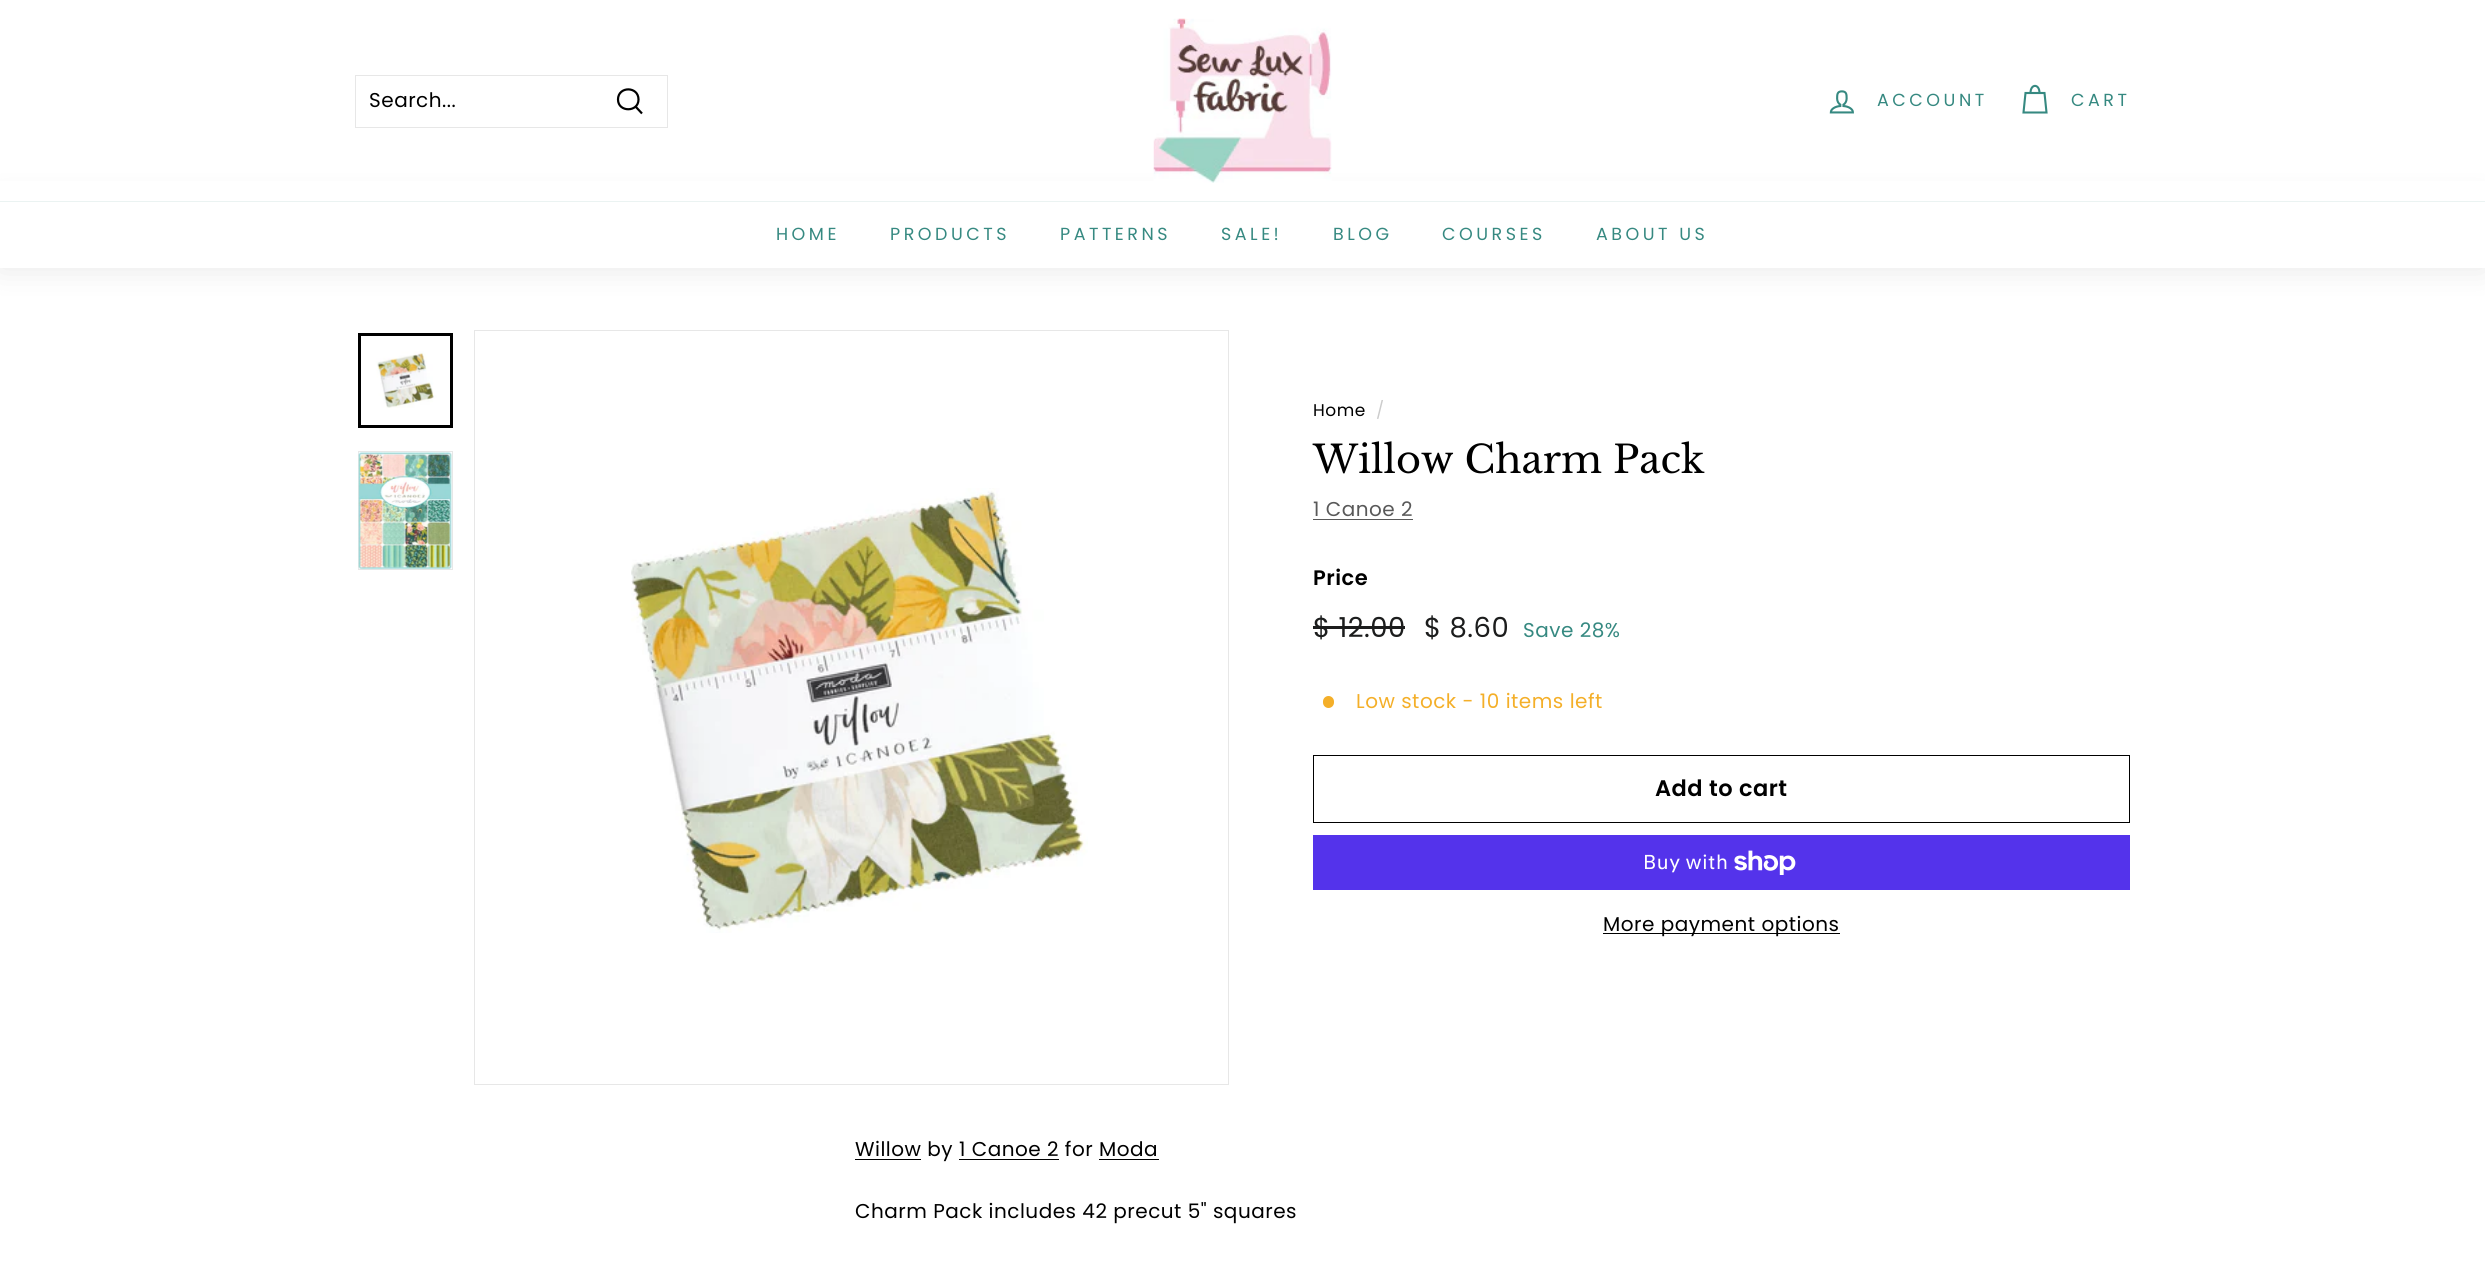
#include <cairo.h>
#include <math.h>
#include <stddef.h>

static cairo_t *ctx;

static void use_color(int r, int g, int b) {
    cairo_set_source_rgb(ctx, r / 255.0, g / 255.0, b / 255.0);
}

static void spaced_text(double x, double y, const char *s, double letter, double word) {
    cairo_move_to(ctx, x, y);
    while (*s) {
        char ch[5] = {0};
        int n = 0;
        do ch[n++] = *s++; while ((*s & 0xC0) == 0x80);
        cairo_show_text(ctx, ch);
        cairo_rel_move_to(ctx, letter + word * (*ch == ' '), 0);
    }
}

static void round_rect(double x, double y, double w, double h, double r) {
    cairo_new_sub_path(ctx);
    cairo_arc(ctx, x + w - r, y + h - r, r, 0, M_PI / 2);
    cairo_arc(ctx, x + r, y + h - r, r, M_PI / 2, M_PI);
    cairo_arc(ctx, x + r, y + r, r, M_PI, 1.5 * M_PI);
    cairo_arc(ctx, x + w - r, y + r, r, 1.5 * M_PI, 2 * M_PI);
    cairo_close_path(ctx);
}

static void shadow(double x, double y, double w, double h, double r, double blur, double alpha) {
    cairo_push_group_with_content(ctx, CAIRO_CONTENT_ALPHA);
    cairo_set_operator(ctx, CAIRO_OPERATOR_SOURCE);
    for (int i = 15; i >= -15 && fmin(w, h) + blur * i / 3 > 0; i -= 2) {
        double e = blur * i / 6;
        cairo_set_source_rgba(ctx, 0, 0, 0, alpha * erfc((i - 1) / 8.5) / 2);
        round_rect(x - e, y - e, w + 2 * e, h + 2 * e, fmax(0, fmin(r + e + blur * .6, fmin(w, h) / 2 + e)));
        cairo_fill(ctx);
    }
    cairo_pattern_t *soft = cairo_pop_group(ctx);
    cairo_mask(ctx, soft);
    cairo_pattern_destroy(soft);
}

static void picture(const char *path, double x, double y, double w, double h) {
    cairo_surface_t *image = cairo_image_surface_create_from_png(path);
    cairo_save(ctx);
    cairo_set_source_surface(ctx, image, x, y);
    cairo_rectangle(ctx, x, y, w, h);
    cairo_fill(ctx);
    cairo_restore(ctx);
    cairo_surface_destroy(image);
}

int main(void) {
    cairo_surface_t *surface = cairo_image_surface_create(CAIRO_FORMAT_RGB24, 2485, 1267);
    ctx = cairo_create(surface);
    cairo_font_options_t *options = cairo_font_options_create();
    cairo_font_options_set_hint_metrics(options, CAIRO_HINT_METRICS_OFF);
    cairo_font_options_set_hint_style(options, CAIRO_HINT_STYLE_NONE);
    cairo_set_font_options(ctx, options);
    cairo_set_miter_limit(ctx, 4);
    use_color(255, 255, 255);
    cairo_paint(ctx);
    use_color(0, 0, 0);
    shadow(0, 201, 2485, 67, 0, 15.5, 0.1);
    use_color(255, 255, 255);
    cairo_rectangle(ctx, 0, 181, 2485, 20);
    cairo_fill(ctx);
    cairo_rectangle(ctx, 355.5, 75.5, 312, 52);
    use_color(231, 231, 231);
    cairo_set_line_width(ctx, 1);
    cairo_stroke(ctx);
    cairo_select_font_face(ctx, "Poppins", CAIRO_FONT_SLANT_NORMAL, CAIRO_FONT_WEIGHT_NORMAL);
    cairo_set_font_size(ctx, 20);
    use_color(0, 0, 0);
    spaced_text(369, 107, "Search...", 0.5, 0);
    cairo_new_path(ctx);
    cairo_move_to(ctx, 638.5, 99.5);
    cairo_curve_to(ctx, 638.5, 112.5, 618, 112.5, 618, 99.5);
    cairo_curve_to(ctx, 618, 86, 638.5, 86, 638.5, 99.5);
    cairo_close_path(ctx);
    cairo_move_to(ctx, 642, 113.5);
    cairo_line_to(ctx, 635.5, 106.5);
    cairo_set_line_width(ctx, 2.2);
    cairo_stroke(ctx);
    picture("img1.png", 1153, 18, 179, 165);
    picture("img2.png", 1829, 90, 25, 24);
    cairo_set_font_size(ctx, 17.5);
    use_color(54, 137, 129);
    spaced_text(1877, 106, "ACCOUNT", 3.5, 0);
    cairo_new_path(ctx);
    cairo_move_to(ctx, 2030.5, 93);
    cairo_curve_to(ctx, 2030.5, 83.5, 2039.5, 83.5, 2039.5, 93);
    cairo_move_to(ctx, 2025.5, 93);
    cairo_line_to(ctx, 2044.5, 93);
    cairo_line_to(ctx, 2046.5, 112.5);
    cairo_line_to(ctx, 2023.5, 112.5);
    cairo_close_path(ctx);
    cairo_set_line_width(ctx, 2.1);
    cairo_stroke(ctx);
    spaced_text(2071, 106, "CART", 3.5, 0);
    use_color(255, 255, 255);
    cairo_rectangle(ctx, 0, 202, 2485, 66);
    cairo_fill(ctx);
    use_color(235, 243, 242);
    cairo_rectangle(ctx, 0, 201, 2485, 1);
    cairo_fill(ctx);
    use_color(54, 137, 129);
    spaced_text(776, 240, "HOME", 3.5, 0);
    spaced_text(890, 240, "PRODUCTS", 3.5, 0);
    spaced_text(1060, 240, "PATTERNS", 3.5, 0);
    spaced_text(1221, 240, "SALE!", 3.5, 0);
    spaced_text(1333, 240, "BLOG", 3.5, 0);
    spaced_text(1442, 240, "COURSES", 3.5, 0);
    spaced_text(1596, 240, "ABOUT US", 3.5, 0);
    picture("img3.png", 361, 336, 89, 89);
    cairo_rectangle(ctx, 359.5, 334.5, 92, 92);
    use_color(0, 0, 0);
    cairo_set_line_width(ctx, 3);
    cairo_stroke(ctx);
    cairo_rectangle(ctx, 358.5, 451.5, 94, 118);
    use_color(231, 231, 231);
    cairo_set_line_width(ctx, 1);
    cairo_stroke(ctx);
    picture("img4.png", 358, 452, 94, 118);
    cairo_rectangle(ctx, 474.5, 330.5, 754, 754);
    cairo_stroke(ctx);
    picture("img5.png", 631, 488, 457, 445);
    cairo_set_font_size(ctx, 17);
    use_color(0, 0, 0);
    spaced_text(1313, 416, "Home", 0.5, 0);
    use_color(204, 204, 204);
    spaced_text(1376, 416, "/", 0.5, 0);
    cairo_select_font_face(ctx, "Libre Baskerville", CAIRO_FONT_SLANT_NORMAL, CAIRO_FONT_WEIGHT_NORMAL);
    cairo_set_font_size(ctx, 38.25);
    use_color(0, 0, 0);
    cairo_move_to(ctx, 1313, 473);
    cairo_show_text(ctx, "Willow Charm Pack");
    cairo_select_font_face(ctx, "Poppins", CAIRO_FONT_SLANT_NORMAL, CAIRO_FONT_WEIGHT_NORMAL);
    cairo_set_font_size(ctx, 20);
    use_color(89, 89, 89);
    spaced_text(1313, 516, "1 Canoe 2", 0.5, 0);
    cairo_rectangle(ctx, 1313, 519, 100, 1);
    cairo_fill(ctx);
    cairo_select_font_face(ctx, "Poppins SemiBold", CAIRO_FONT_SLANT_NORMAL, CAIRO_FONT_WEIGHT_NORMAL);
    cairo_set_font_size(ctx, 21);
    use_color(0, 0, 0);
    spaced_text(1313, 585, "Price", 0.5, 0);
    cairo_select_font_face(ctx, "Poppins", CAIRO_FONT_SLANT_NORMAL, CAIRO_FONT_WEIGHT_NORMAL);
    cairo_set_font_size(ctx, 27.5);
    use_color(28, 29, 29);
    spaced_text(1313, 637, "$ 12.00", 0.5, 0);
    cairo_rectangle(ctx, 1313, 626, 92, 3);
    cairo_fill(ctx);
    spaced_text(1424, 637, "$ 8.60", 0.5, 0);
    cairo_set_font_size(ctx, 20);
    use_color(54, 137, 129);
    spaced_text(1523, 637, "Save 28%", 0.5, 0);
    use_color(244, 175, 41);
    round_rect(1323, 696, 11, 12, 5.5);
    cairo_fill(ctx);
    spaced_text(1356, 708, "Low stock - 10 items left", 0.5, 0);
    cairo_rectangle(ctx, 1313.5, 755.5, 816, 67);
    use_color(0, 0, 0);
    cairo_stroke(ctx);
    cairo_select_font_face(ctx, "Poppins SemiBold", CAIRO_FONT_SLANT_NORMAL, CAIRO_FONT_WEIGHT_NORMAL);
    cairo_set_font_size(ctx, 22.5);
    spaced_text(1655, 796, "Add to cart", 0.5, 0);
    use_color(84, 51, 235);
    cairo_rectangle(ctx, 1313, 835, 817, 55);
    cairo_fill(ctx);
    cairo_select_font_face(ctx, "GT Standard", CAIRO_FONT_SLANT_NORMAL, CAIRO_FONT_WEIGHT_NORMAL);
    cairo_set_font_size(ctx, 20);
    use_color(255, 255, 255);
    spaced_text(1643, 869, "Buy with", 0.5, 0);
    picture("img6.png", 1734, 850, 62, 25);
    use_color(0, 0, 0);
    cairo_rectangle(ctx, 1603, 933, 237, 1);
    cairo_fill(ctx);
    cairo_select_font_face(ctx, "Poppins", CAIRO_FONT_SLANT_NORMAL, CAIRO_FONT_WEIGHT_NORMAL);
    spaced_text(1603, 931, "More payment options", 0.5, 0);
    cairo_rectangle(ctx, 855, 1159, 66, 1);
    cairo_fill(ctx);
    spaced_text(855, 1156, "Willow by 1 Canoe 2 for Moda", 0.5, 0);
    cairo_rectangle(ctx, 959, 1159, 100, 1);
    cairo_fill(ctx);
    cairo_rectangle(ctx, 1099, 1159, 60, 1);
    cairo_fill(ctx);
    spaced_text(855, 1218, "Charm Pack includes 42 precut 5\" squares", 0.5, 0);
    cairo_surface_write_to_png(surface, "result.png");
    cairo_font_options_destroy(options);
    cairo_destroy(ctx);
    cairo_surface_destroy(surface);
    return 0;
}
